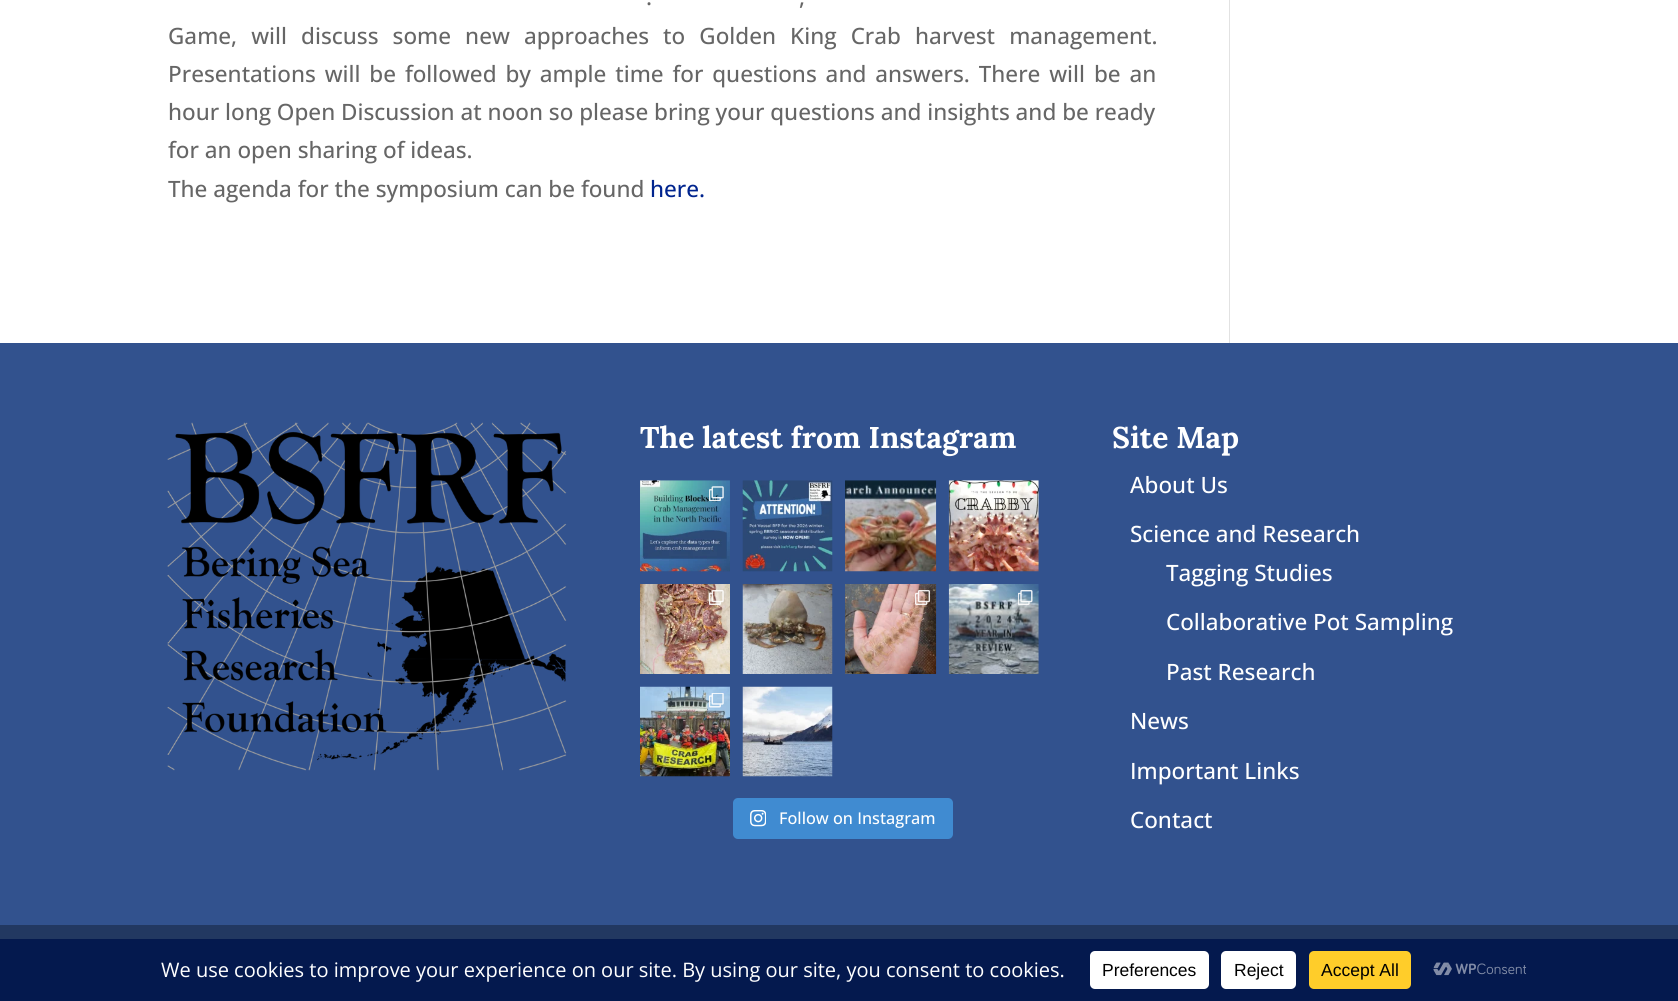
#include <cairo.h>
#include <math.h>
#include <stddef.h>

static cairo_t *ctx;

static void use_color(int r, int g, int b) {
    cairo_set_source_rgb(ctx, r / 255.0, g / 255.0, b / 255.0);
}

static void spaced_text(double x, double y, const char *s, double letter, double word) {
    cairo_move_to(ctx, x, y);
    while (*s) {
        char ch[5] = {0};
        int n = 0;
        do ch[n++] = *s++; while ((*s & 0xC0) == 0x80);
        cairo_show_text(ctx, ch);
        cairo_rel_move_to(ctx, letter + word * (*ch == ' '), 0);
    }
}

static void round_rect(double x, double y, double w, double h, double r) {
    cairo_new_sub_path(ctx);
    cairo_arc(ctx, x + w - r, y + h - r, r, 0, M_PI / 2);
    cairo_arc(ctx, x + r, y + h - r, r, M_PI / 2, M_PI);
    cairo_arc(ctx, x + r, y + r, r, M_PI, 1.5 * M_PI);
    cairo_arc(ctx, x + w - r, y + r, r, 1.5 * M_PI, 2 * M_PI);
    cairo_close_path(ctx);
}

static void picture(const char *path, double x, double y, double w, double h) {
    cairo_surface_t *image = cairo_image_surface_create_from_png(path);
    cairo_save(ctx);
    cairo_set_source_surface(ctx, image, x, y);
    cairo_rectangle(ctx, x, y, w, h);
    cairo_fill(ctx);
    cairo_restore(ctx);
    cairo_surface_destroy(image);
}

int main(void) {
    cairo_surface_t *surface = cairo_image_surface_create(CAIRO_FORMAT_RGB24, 1678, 1001);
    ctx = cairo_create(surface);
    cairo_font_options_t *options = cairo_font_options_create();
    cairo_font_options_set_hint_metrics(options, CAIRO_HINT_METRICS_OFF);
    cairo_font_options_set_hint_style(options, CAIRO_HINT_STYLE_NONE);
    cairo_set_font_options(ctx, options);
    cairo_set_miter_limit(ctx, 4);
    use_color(255, 255, 255);
    cairo_paint(ctx);
    cairo_select_font_face(ctx, "Open Sans Medium", CAIRO_FONT_SLANT_NORMAL, CAIRO_FONT_WEIGHT_NORMAL);
    cairo_set_font_size(ctx, 22.5);
    use_color(102, 102, 102);
    spaced_text(646, 5, ".", 0, 4);
    spaced_text(799, 5, ",", 0, 4);
    spaced_text(168, 44, "Game, will discuss some new approaches to Golden King Crab harvest management.", 0, 8.25);
    spaced_text(168, 82, "Presentations will be followed by ample time for questions and answers. There will be an", 0, 3);
    cairo_move_to(ctx, 168, 120);
    cairo_show_text(ctx, "hour long Open Discussion at noon so please bring your questions and insights and be ready");
    cairo_move_to(ctx, 168, 158);
    cairo_show_text(ctx, "for an open sharing of ideas.");
    cairo_move_to(ctx, 168, 197);
    cairo_show_text(ctx, "The agenda for the symposium can be found");
    use_color(0, 36, 142);
    cairo_move_to(ctx, 650, 197);
    cairo_show_text(ctx, "here.");
    use_color(226, 226, 226);
    cairo_rectangle(ctx, 1229, 0, 1, 343);
    cairo_fill(ctx);
    use_color(50, 82, 142);
    cairo_rectangle(ctx, 0, 343, 1678, 582);
    cairo_fill(ctx);
    picture("img1.png", 167, 422, 400, 349);
    cairo_select_font_face(ctx, "Lora", CAIRO_FONT_SLANT_NORMAL, CAIRO_FONT_WEIGHT_BOLD);
    cairo_set_font_size(ctx, 30);
    use_color(255, 255, 255);
    cairo_move_to(ctx, 640, 448);
    cairo_show_text(ctx, "The latest from Instagram");
    picture("img2.png", 640, 480, 90, 92);
    picture("img3.png", 709, 486, 15, 15);
    picture("img4.png", 742, 480, 91, 92);
    picture("img5.png", 845, 480, 92, 92);
    picture("img6.png", 948, 480, 91, 92);
    picture("img7.png", 640, 584, 90, 90);
    picture("img8.png", 709, 590, 15, 15);
    picture("img9.png", 742, 584, 91, 90);
    picture("img10.png", 845, 584, 92, 90);
    picture("img11.png", 915, 590, 15, 15);
    picture("img12.png", 948, 584, 91, 90);
    picture("img13.png", 1018, 590, 15, 15);
    picture("img14.png", 640, 686, 90, 91);
    picture("img15.png", 709, 693, 15, 15);
    picture("img16.png", 742, 686, 91, 91);
    use_color(64, 139, 209);
    round_rect(733, 798, 220, 41, 5);
    cairo_fill(ctx);
    picture("img17.png", 750, 810, 16, 17);
    cairo_select_font_face(ctx, "Open Sans Medium", CAIRO_FONT_SLANT_NORMAL, CAIRO_FONT_WEIGHT_NORMAL);
    cairo_set_font_size(ctx, 16.25);
    use_color(255, 255, 255);
    cairo_move_to(ctx, 779, 824);
    cairo_show_text(ctx, "Follow on Instagram");
    cairo_select_font_face(ctx, "Lora", CAIRO_FONT_SLANT_NORMAL, CAIRO_FONT_WEIGHT_BOLD);
    cairo_set_font_size(ctx, 30);
    cairo_move_to(ctx, 1112, 448);
    cairo_show_text(ctx, "Site Map");
    cairo_select_font_face(ctx, "Open Sans Medium", CAIRO_FONT_SLANT_NORMAL, CAIRO_FONT_WEIGHT_NORMAL);
    cairo_set_font_size(ctx, 22.5);
    cairo_move_to(ctx, 1130, 493);
    cairo_show_text(ctx, "About Us");
    cairo_move_to(ctx, 1130, 542);
    cairo_show_text(ctx, "Science and Research");
    cairo_move_to(ctx, 1166, 581);
    cairo_show_text(ctx, "Tagging Studies");
    cairo_move_to(ctx, 1166, 630);
    cairo_show_text(ctx, "Collaborative Pot Sampling");
    cairo_move_to(ctx, 1166, 680);
    cairo_show_text(ctx, "Past Research");
    cairo_move_to(ctx, 1130, 729);
    cairo_show_text(ctx, "News");
    cairo_move_to(ctx, 1130, 779);
    cairo_show_text(ctx, "Important Links");
    cairo_move_to(ctx, 1130, 828);
    cairo_show_text(ctx, "Contact");
    use_color(34, 56, 97);
    cairo_rectangle(ctx, 0, 925, 1678, 14);
    cairo_fill(ctx);
    use_color(4, 25, 78);
    cairo_rectangle(ctx, 0, 939, 1678, 62);
    cairo_fill(ctx);
    cairo_select_font_face(ctx, "Open Sans", CAIRO_FONT_SLANT_NORMAL, CAIRO_FONT_WEIGHT_NORMAL);
    cairo_set_font_size(ctx, 20);
    use_color(255, 255, 255);
    cairo_move_to(ctx, 161, 977);
    cairo_show_text(ctx, "We use cookies to improve your experience on our site. By using our site, you consent to cookies.");
    round_rect(1090, 951, 119, 38, 5);
    cairo_fill(ctx);
    cairo_select_font_face(ctx, "Liberation Sans", CAIRO_FONT_SLANT_NORMAL, CAIRO_FONT_WEIGHT_NORMAL);
    cairo_set_font_size(ctx, 17.5);
    use_color(0, 0, 0);
    cairo_move_to(ctx, 1102, 976);
    cairo_show_text(ctx, "Preferences");
    use_color(255, 255, 255);
    round_rect(1221, 951, 75, 38, 5);
    cairo_fill(ctx);
    use_color(0, 0, 0);
    cairo_move_to(ctx, 1234, 976);
    cairo_show_text(ctx, "Reject");
    use_color(255, 205, 42);
    round_rect(1309, 951, 102, 38, 5);
    cairo_fill(ctx);
    use_color(0, 0, 0);
    cairo_move_to(ctx, 1321, 976);
    cairo_show_text(ctx, "Accept All");
    picture("img18.png", 1433, 962, 94, 14);
    cairo_surface_write_to_png(surface, "result.png");
    cairo_font_options_destroy(options);
    cairo_destroy(ctx);
    cairo_surface_destroy(surface);
    return 0;
}
